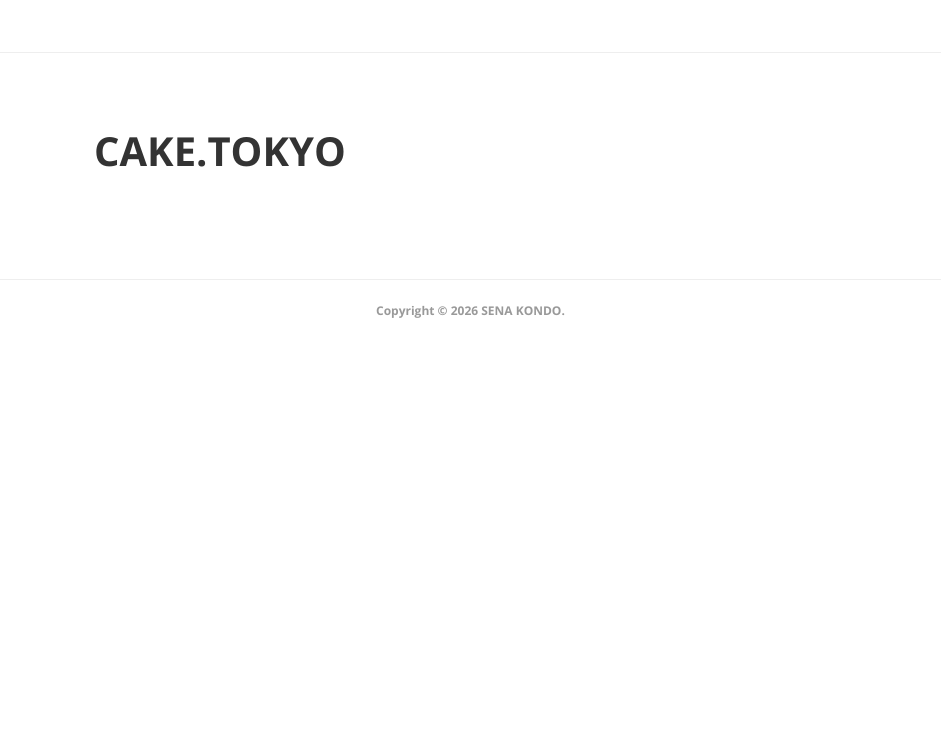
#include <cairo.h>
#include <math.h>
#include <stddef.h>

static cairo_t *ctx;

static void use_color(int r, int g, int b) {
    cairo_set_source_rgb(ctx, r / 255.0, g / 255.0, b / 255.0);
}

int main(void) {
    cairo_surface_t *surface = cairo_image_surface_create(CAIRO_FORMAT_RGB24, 941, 746);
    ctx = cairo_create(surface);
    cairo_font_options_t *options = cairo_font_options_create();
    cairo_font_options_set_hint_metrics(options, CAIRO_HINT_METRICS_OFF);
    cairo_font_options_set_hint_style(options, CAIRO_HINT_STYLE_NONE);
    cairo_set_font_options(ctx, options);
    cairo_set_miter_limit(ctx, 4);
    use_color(255, 255, 255);
    cairo_paint(ctx);
    use_color(238, 238, 238);
    cairo_rectangle(ctx, 0, 52, 941, 1);
    cairo_fill(ctx);
    cairo_select_font_face(ctx, "Open Sans", CAIRO_FONT_SLANT_NORMAL, CAIRO_FONT_WEIGHT_BOLD);
    cairo_set_font_size(ctx, 40);
    use_color(51, 51, 51);
    cairo_move_to(ctx, 94, 166);
    cairo_show_text(ctx, "CAKE.TOKYO");
    use_color(238, 238, 238);
    cairo_rectangle(ctx, 0, 279, 941, 1);
    cairo_fill(ctx);
    cairo_set_font_size(ctx, 12);
    use_color(153, 153, 153);
    cairo_move_to(ctx, 376, 315);
    cairo_show_text(ctx, "Copyright © 2026 SENA KONDO.");
    cairo_surface_write_to_png(surface, "result.png");
    cairo_font_options_destroy(options);
    cairo_destroy(ctx);
    cairo_surface_destroy(surface);
    return 0;
}
